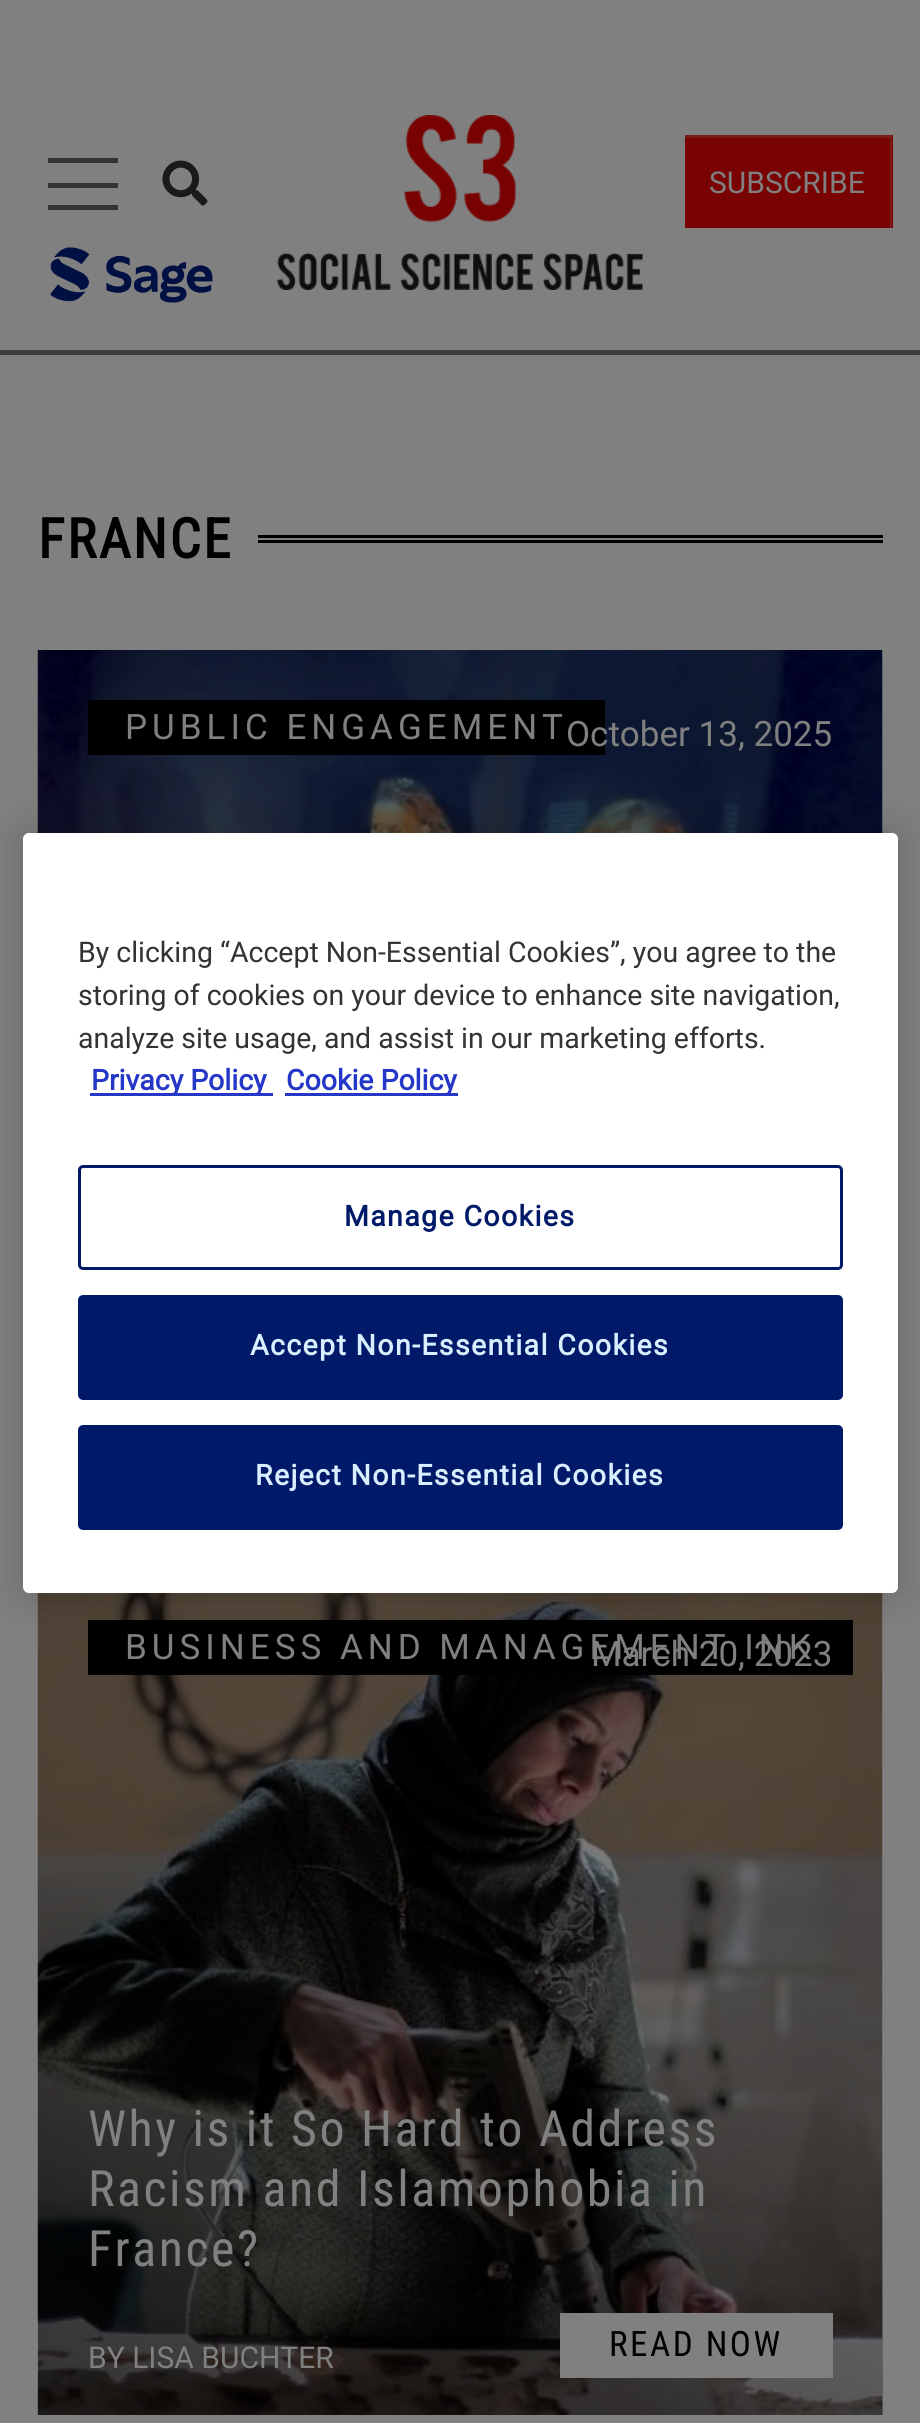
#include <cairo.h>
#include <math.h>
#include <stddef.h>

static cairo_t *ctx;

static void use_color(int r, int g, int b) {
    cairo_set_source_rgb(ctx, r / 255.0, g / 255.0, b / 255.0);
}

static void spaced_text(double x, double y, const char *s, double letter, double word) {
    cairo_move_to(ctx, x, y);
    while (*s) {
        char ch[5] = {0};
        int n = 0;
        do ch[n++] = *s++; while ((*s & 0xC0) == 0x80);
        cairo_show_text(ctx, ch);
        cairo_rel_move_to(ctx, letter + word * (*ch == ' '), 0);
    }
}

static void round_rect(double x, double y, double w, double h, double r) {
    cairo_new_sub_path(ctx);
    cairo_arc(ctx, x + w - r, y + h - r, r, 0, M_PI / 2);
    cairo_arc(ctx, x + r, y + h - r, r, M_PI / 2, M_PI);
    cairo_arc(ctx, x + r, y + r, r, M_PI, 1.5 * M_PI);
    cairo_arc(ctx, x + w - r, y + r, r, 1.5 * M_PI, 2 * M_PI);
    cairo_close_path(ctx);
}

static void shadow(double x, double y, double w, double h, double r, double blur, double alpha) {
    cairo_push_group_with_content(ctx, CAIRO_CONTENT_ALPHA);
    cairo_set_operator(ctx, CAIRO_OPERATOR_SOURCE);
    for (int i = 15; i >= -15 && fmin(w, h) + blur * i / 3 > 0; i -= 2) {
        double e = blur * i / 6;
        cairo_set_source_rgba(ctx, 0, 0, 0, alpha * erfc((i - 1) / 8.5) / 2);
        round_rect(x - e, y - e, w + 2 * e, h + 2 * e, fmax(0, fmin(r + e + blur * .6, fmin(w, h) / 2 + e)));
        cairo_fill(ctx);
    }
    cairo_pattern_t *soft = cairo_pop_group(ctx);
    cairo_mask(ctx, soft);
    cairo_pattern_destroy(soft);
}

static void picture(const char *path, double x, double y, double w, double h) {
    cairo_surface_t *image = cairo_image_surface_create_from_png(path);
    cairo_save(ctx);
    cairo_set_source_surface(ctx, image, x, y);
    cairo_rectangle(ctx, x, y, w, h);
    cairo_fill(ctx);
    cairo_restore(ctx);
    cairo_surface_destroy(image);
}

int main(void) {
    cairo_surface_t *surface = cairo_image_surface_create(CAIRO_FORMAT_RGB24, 920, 2423);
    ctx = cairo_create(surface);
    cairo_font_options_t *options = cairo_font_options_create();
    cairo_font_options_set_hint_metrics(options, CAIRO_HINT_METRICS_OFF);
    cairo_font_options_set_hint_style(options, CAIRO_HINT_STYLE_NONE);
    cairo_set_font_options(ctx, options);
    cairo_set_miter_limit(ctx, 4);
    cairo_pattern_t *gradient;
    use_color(128, 128, 128);
    cairo_paint(ctx);
    use_color(58, 61, 62);
    cairo_rectangle(ctx, 0, 350, 920, 5);
    cairo_fill(ctx);
    use_color(51, 51, 51);
    cairo_rectangle(ctx, 48, 158, 70, 5);
    cairo_fill(ctx);
    cairo_rectangle(ctx, 48, 205, 70, 5);
    cairo_fill(ctx);
    cairo_rectangle(ctx, 48, 183, 70, 5);
    cairo_fill(ctx);
    picture("img1.png", 162, 160, 46, 46);
    picture("img2.png", 277, 115, 366, 175);
    picture("img3.png", 50, 247, 163, 56);
    use_color(121, 3, 3);
    cairo_rectangle(ctx, 685, 135, 208, 93);
    cairo_fill(ctx);
    use_color(122, 28, 28);
    cairo_new_path(ctx);
    cairo_move_to(ctx, 685, 135);
    cairo_line_to(ctx, 892, 135);
    cairo_line_to(ctx, 890, 138);
    cairo_line_to(ctx, 685, 138);
    cairo_close_path(ctx);
    cairo_fill(ctx);
    cairo_set_source_rgba(ctx, 0.502, 0.502, 0.502, 0.2);
    cairo_new_path(ctx);
    cairo_move_to(ctx, 892, 135);
    cairo_line_to(ctx, 892, 228);
    cairo_line_to(ctx, 890, 228);
    cairo_line_to(ctx, 890, 138);
    cairo_close_path(ctx);
    cairo_fill(ctx);
    cairo_select_font_face(ctx, "Roboto", CAIRO_FONT_SLANT_NORMAL, CAIRO_FONT_WEIGHT_NORMAL);
    cairo_set_font_size(ctx, 30);
    use_color(128, 128, 128);
    cairo_move_to(ctx, 709, 193);
    cairo_show_text(ctx, "SUBSCRIBE");
    cairo_select_font_face(ctx, "Roboto Condensed", CAIRO_FONT_SLANT_NORMAL, CAIRO_FONT_WEIGHT_BOLD);
    cairo_set_font_size(ctx, 55);
    use_color(0, 0, 0);
    spaced_text(38, 558, "FRANCE", 2.5, 0);
    cairo_rectangle(ctx, 258, 535, 625, 3);
    cairo_fill(ctx);
    cairo_rectangle(ctx, 258, 540, 625, 3);
    cairo_fill(ctx);
    picture("img4.png", 37, 650, 846, 183);
    cairo_rectangle(ctx, 88, 700, 517, 55);
    cairo_fill(ctx);
    cairo_select_font_face(ctx, "Roboto", CAIRO_FONT_SLANT_NORMAL, CAIRO_FONT_WEIGHT_NORMAL);
    cairo_set_font_size(ctx, 35);
    use_color(128, 128, 128);
    spaced_text(125, 739, "PUBLIC ENGAGEMENT", 5, 0);
    cairo_move_to(ctx, 566, 746);
    cairo_show_text(ctx, "October 13, 2025");
    picture("img5.png", 37, 1593, 846, 822);
    use_color(0, 0, 0);
    cairo_rectangle(ctx, 88, 1620, 765, 55);
    cairo_fill(ctx);
    use_color(128, 128, 128);
    spaced_text(125, 1659, "BUSINESS AND MANAGEMENT INK", 5, 0);
    cairo_move_to(ctx, 591, 1666);
    cairo_show_text(ctx, "March 20, 2023");
    gradient = cairo_pattern_create_linear(275, 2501, 645, 1484);
    cairo_pattern_add_color_stop_rgba(gradient, 0, 0, 0, 0, 0.6);
    cairo_pattern_add_color_stop_rgba(gradient, 0.5, 0, 0, 0, 0);
    cairo_set_source(ctx, gradient);
    cairo_pattern_destroy(gradient);
    cairo_rectangle(ctx, 38, 1875, 845, 540);
    cairo_fill(ctx);
    cairo_select_font_face(ctx, "Roboto Condensed", CAIRO_FONT_SLANT_NORMAL, CAIRO_FONT_WEIGHT_NORMAL);
    cairo_set_font_size(ctx, 50);
    use_color(128, 128, 128);
    spaced_text(88, 2146, "Why is it So Hard to Address", 2.5, 0);
    spaced_text(88, 2206, "Racism and Islamophobia in", 2.5, 0);
    spaced_text(88, 2266, "France?", 2.5, 0);
    cairo_select_font_face(ctx, "Roboto", CAIRO_FONT_SLANT_NORMAL, CAIRO_FONT_WEIGHT_NORMAL);
    cairo_set_font_size(ctx, 30);
    cairo_move_to(ctx, 88, 2368);
    cairo_show_text(ctx, "BY LISA BUCHTER");
    cairo_rectangle(ctx, 560, 2313, 273, 65);
    cairo_fill(ctx);
    cairo_select_font_face(ctx, "Roboto Condensed", CAIRO_FONT_SLANT_NORMAL, CAIRO_FONT_WEIGHT_NORMAL);
    cairo_set_font_size(ctx, 35);
    use_color(0, 0, 0);
    spaced_text(609, 2356, "READ NOW", 2.5, 0);
    use_color(0, 0, 0);
    shadow(23, 833, 875, 760, 6, 22.5, 0.2);
    use_color(255, 255, 255);
    round_rect(23, 833, 875, 760, 6);
    cairo_fill(ctx);
    cairo_select_font_face(ctx, "Roboto", CAIRO_FONT_SLANT_NORMAL, CAIRO_FONT_WEIGHT_NORMAL);
    cairo_set_font_size(ctx, 28.45);
    use_color(51, 51, 51);
    cairo_move_to(ctx, 78, 962);
    cairo_show_text(ctx, "By clicking “Accept Non-Essential Cookies”, you agree to the");
    cairo_move_to(ctx, 78, 1005);
    cairo_show_text(ctx, "storing of cookies on your device to enhance site navigation,");
    cairo_move_to(ctx, 78, 1048);
    cairo_show_text(ctx, "analyze site usage, and assist in our marketing efforts.");
    use_color(37, 55, 198);
    cairo_rectangle(ctx, 90, 1093, 183, 3);
    cairo_fill(ctx);
    cairo_select_font_face(ctx, "Roboto", CAIRO_FONT_SLANT_NORMAL, CAIRO_FONT_WEIGHT_BOLD);
    cairo_move_to(ctx, 91, 1090);
    cairo_show_text(ctx, "Privacy Policy");
    cairo_rectangle(ctx, 285, 1093, 173, 3);
    cairo_fill(ctx);
    cairo_move_to(ctx, 286, 1090);
    cairo_show_text(ctx, "Cookie Policy");
    round_rect(79.5, 1166.5, 762, 102, 3.5);
    use_color(0, 26, 105);
    cairo_set_line_width(ctx, 3);
    cairo_stroke(ctx);
    spaced_text(344, 1226, "Manage Cookies", 1.4, 0);
    round_rect(79.5, 1296.5, 762, 102, 3.5);
    cairo_fill_preserve(ctx);
    cairo_stroke(ctx);
    use_color(217, 238, 255);
    spaced_text(250, 1355, "Accept Non-Essential Cookies", 1.4, 0);
    use_color(0, 26, 105);
    round_rect(79.5, 1426.5, 762, 102, 3.5);
    cairo_fill_preserve(ctx);
    cairo_stroke(ctx);
    use_color(217, 238, 255);
    spaced_text(255, 1485, "Reject Non-Essential Cookies", 1.4, 0);
    cairo_surface_write_to_png(surface, "result.png");
    cairo_font_options_destroy(options);
    cairo_destroy(ctx);
    cairo_surface_destroy(surface);
    return 0;
}
